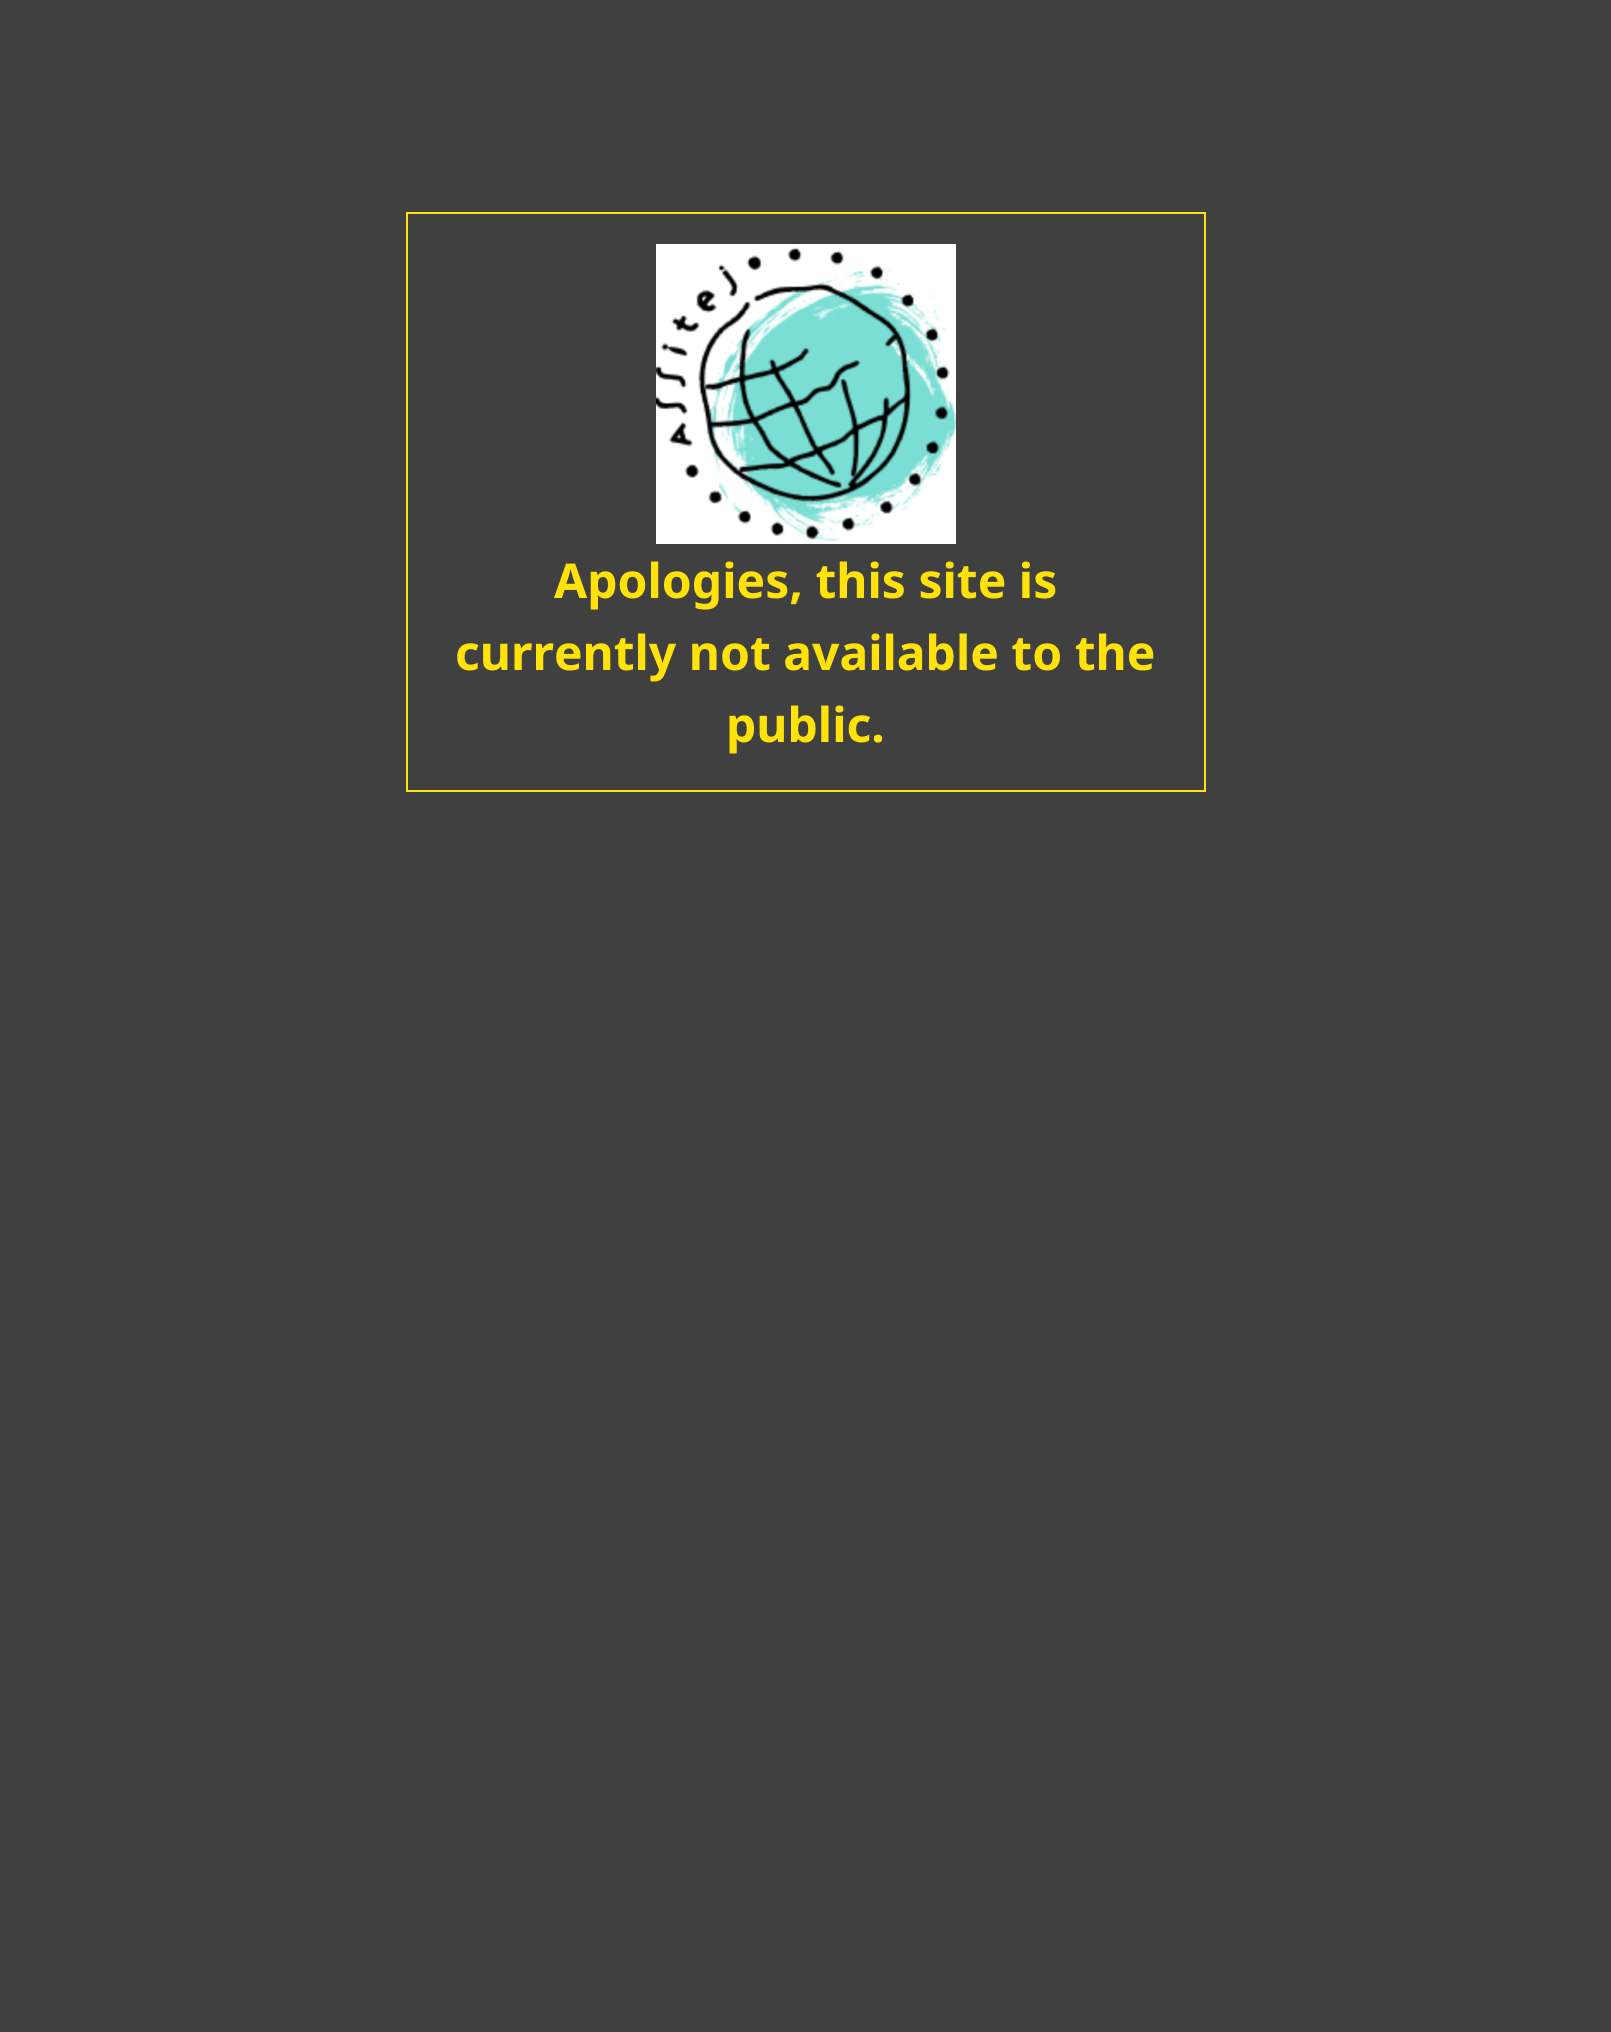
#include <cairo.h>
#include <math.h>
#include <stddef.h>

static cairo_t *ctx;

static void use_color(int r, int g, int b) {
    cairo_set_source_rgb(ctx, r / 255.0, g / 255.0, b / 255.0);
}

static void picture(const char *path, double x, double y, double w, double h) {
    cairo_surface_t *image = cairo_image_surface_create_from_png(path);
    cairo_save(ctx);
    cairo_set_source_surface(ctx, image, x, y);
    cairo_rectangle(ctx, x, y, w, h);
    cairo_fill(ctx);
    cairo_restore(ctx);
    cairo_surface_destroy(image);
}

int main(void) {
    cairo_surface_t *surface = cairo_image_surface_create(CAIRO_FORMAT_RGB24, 1611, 2032);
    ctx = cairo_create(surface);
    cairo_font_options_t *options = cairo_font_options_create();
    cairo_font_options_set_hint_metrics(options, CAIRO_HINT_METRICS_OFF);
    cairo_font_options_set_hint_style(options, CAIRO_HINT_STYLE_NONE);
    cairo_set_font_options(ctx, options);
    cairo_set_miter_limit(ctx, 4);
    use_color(64, 64, 64);
    cairo_paint(ctx);
    cairo_rectangle(ctx, 407, 213, 798, 578);
    use_color(255, 226, 10);
    cairo_stroke(ctx);
    picture("img1.png", 656, 244, 300, 300);
    cairo_select_font_face(ctx, "Noto Sans", CAIRO_FONT_SLANT_NORMAL, CAIRO_FONT_WEIGHT_BOLD);
    cairo_set_font_size(ctx, 48);
    cairo_move_to(ctx, 554, 598);
    cairo_show_text(ctx, "Apologies, this site is");
    cairo_move_to(ctx, 455, 670);
    cairo_show_text(ctx, "currently not available to the");
    cairo_move_to(ctx, 726, 742);
    cairo_show_text(ctx, "public.");
    cairo_surface_write_to_png(surface, "result.png");
    cairo_font_options_destroy(options);
    cairo_destroy(ctx);
    cairo_surface_destroy(surface);
    return 0;
}
